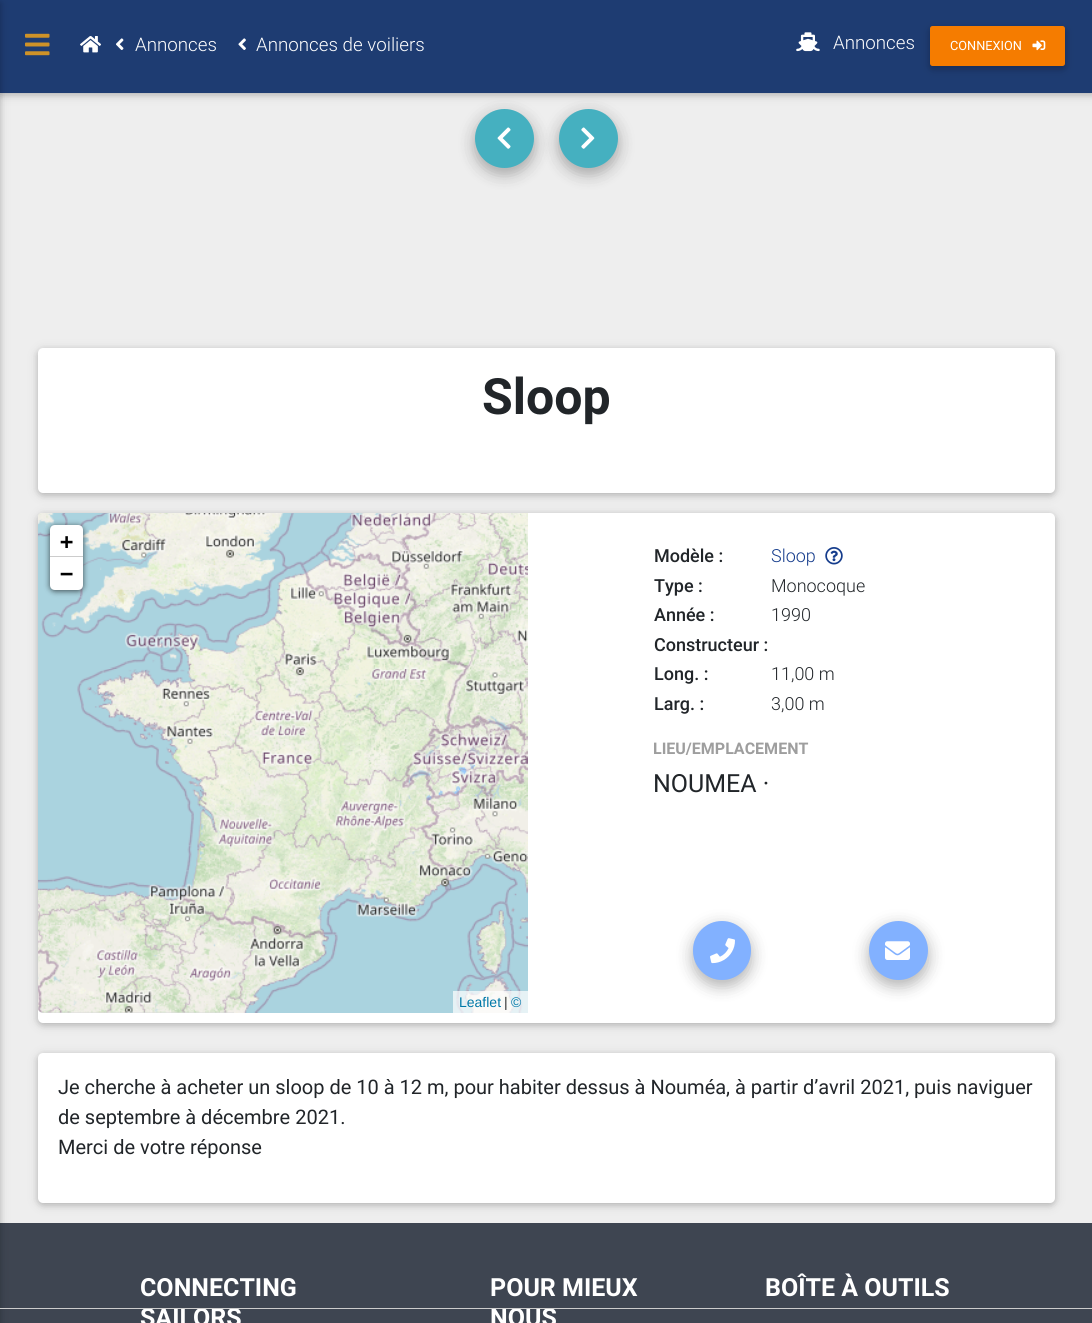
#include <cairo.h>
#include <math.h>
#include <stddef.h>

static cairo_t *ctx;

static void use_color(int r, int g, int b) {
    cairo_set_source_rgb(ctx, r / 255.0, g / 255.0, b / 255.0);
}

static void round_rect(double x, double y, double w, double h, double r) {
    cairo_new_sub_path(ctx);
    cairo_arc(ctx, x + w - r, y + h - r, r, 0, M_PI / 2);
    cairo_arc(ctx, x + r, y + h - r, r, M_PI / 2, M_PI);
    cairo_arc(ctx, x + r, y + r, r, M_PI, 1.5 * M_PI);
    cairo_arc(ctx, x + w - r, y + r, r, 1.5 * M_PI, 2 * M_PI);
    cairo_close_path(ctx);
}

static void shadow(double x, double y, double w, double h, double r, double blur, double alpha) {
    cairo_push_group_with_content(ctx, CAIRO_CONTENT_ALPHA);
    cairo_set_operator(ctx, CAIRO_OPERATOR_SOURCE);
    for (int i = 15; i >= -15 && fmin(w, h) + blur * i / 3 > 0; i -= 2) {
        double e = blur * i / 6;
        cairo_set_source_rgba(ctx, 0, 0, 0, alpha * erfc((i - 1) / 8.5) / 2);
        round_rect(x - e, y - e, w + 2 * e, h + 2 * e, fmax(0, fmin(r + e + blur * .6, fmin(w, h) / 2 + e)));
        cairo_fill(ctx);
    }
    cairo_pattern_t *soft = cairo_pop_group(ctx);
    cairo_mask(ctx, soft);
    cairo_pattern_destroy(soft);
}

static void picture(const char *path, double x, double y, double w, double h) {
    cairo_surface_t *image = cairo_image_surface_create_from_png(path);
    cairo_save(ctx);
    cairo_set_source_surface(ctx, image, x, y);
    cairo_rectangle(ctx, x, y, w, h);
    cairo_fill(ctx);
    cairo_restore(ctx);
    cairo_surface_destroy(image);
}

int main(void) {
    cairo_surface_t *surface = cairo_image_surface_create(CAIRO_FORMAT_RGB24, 1092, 1323);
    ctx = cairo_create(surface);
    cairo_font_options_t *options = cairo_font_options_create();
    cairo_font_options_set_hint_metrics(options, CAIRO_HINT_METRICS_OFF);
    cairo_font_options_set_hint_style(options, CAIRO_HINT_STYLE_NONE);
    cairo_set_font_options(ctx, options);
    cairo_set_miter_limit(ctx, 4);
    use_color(238, 238, 238);
    cairo_paint(ctx);
    use_color(0, 0, 0);
    shadow(475, 114, 59, 59, 29.5, 9.5, 0.15);
    shadow(475, 115, 59, 59, 29.5, 7, 0.18);
    use_color(69, 176, 192);
    cairo_arc(ctx, 504.5, 138.5, 29.5, 0, 2 * M_PI);
    cairo_fill(ctx);
    use_color(0, 0, 0);
    shadow(559, 114, 59, 59, 29.5, 9.5, 0.15);
    shadow(559, 115, 59, 59, 29.5, 7, 0.18);
    use_color(69, 176, 192);
    cairo_arc(ctx, 588.5, 138.5, 29.5, 0, 2 * M_PI);
    cairo_fill(ctx);
    use_color(0, 0, 0);
    shadow(0, 3, 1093, 92, 0, 6, 0.12);
    shadow(0, 3, 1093, 92, 0, 3, 0.16);
    use_color(30, 60, 114);
    cairo_rectangle(ctx, 0, 0, 1092, 93);
    cairo_fill(ctx);
    use_color(62, 69, 81);
    cairo_rectangle(ctx, 0, 1223, 1092, 100);
    cairo_fill(ctx);
    use_color(0, 0, 0);
    shadow(-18, 3, 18, 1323, 0, 6, 0.12);
    shadow(-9, 3, 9, 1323, 0, 3, 0.16);
    picture("img1.png", 25, 33, 25, 23);
    picture("img2.png", 80, 36, 21, 17);
    picture("img3.png", 116, 38, 8, 12);
    cairo_select_font_face(ctx, "Roboto Light", CAIRO_FONT_SLANT_NORMAL, CAIRO_FONT_WEIGHT_NORMAL);
    cairo_set_font_size(ctx, 18.75);
    use_color(255, 255, 255);
    cairo_move_to(ctx, 135, 51);
    cairo_show_text(ctx, "Annonces");
    picture("img4.png", 238, 38, 8, 12);
    cairo_move_to(ctx, 256, 51);
    cairo_show_text(ctx, "Annonces de voiliers");
    picture("img5.png", 796, 32, 24, 20);
    cairo_move_to(ctx, 833, 49);
    cairo_show_text(ctx, "Annonces");
    use_color(0, 0, 0);
    shadow(930, 29, 135, 40, 2.5, 6, 0.12);
    shadow(930, 29, 135, 40, 2.5, 3, 0.16);
    use_color(245, 124, 0);
    round_rect(930, 26, 135, 40, 2.5);
    cairo_fill(ctx);
    cairo_select_font_face(ctx, "Roboto", CAIRO_FONT_SLANT_NORMAL, CAIRO_FONT_WEIGHT_NORMAL);
    cairo_set_font_size(ctx, 12.75);
    use_color(255, 255, 255);
    cairo_move_to(ctx, 950, 50);
    cairo_show_text(ctx, "CONNEXION");
    picture("img6.png", 1032, 40, 14, 11);
    picture("img7.png", 497, 127, 14, 22);
    picture("img8.png", 581, 127, 14, 22);
    use_color(0, 0, 0);
    shadow(38, 350, 1017, 145, 5, 6, 0.12);
    shadow(38, 350, 1017, 145, 5, 3, 0.16);
    use_color(255, 255, 255);
    round_rect(38, 348, 1017, 145, 5);
    cairo_fill(ctx);
    cairo_select_font_face(ctx, "Roboto", CAIRO_FONT_SLANT_NORMAL, CAIRO_FONT_WEIGHT_BOLD);
    cairo_set_font_size(ctx, 50);
    use_color(33, 37, 41);
    cairo_move_to(ctx, 482, 414);
    cairo_show_text(ctx, "Sloop");
    use_color(0, 0, 0);
    shadow(38, 515, 1017, 510, 5, 6, 0.12);
    shadow(38, 515, 1017, 510, 5, 3, 0.16);
    use_color(255, 255, 255);
    round_rect(38, 513, 1017, 510, 5);
    cairo_fill(ctx);
    use_color(221, 221, 221);
    cairo_new_path(ctx);
    cairo_move_to(ctx, 43, 513);
    cairo_line_to(ctx, 528, 513);
    cairo_line_to(ctx, 528, 1013);
    cairo_line_to(ctx, 43, 1013);
    cairo_curve_to(ctx, 40, 1013, 38, 1011, 38, 1008);
    cairo_line_to(ctx, 38, 518);
    cairo_curve_to(ctx, 38, 515, 40, 513, 43, 513);
    cairo_close_path(ctx);
    cairo_fill(ctx);
    picture("img9.png", 38, 513, 196, 156);
    picture("img10.png", 234, 513, 294, 156);
    picture("img11.png", 38, 669, 196, 320);
    picture("img12.png", 234, 669, 294, 320);
    picture("img13.png", 38, 988, 196, 25);
    picture("img14.png", 234, 988, 294, 25);
    use_color(0, 0, 0);
    shadow(50, 526, 33, 65, 5, 3, 0.65);
    use_color(255, 255, 255);
    cairo_new_path(ctx);
    cairo_move_to(ctx, 55, 525);
    cairo_line_to(ctx, 78, 525);
    cairo_curve_to(ctx, 81, 525, 83, 527, 83, 530);
    cairo_line_to(ctx, 83, 558);
    cairo_line_to(ctx, 50, 558);
    cairo_line_to(ctx, 50, 530);
    cairo_curve_to(ctx, 50, 527, 52, 525, 55, 525);
    cairo_close_path(ctx);
    cairo_fill(ctx);
    use_color(204, 204, 204);
    cairo_rectangle(ctx, 50, 556, 33, 1);
    cairo_fill(ctx);
    cairo_select_font_face(ctx, "DejaVu Sans Mono", CAIRO_FONT_SLANT_NORMAL, CAIRO_FONT_WEIGHT_BOLD);
    cairo_set_font_size(ctx, 22);
    use_color(0, 0, 0);
    cairo_move_to(ctx, 60, 549);
    cairo_show_text(ctx, "+");
    use_color(255, 255, 255);
    cairo_new_path(ctx);
    cairo_move_to(ctx, 50, 558);
    cairo_line_to(ctx, 83, 558);
    cairo_line_to(ctx, 83, 585);
    cairo_curve_to(ctx, 83, 588, 81, 590, 78, 590);
    cairo_line_to(ctx, 55, 590);
    cairo_curve_to(ctx, 52, 590, 50, 588, 50, 585);
    cairo_close_path(ctx);
    cairo_fill(ctx);
    use_color(0, 0, 0);
    cairo_move_to(ctx, 60, 581);
    cairo_show_text(ctx, "−");
    cairo_set_source_rgba(ctx, 1, 1, 1, 0.7);
    cairo_rectangle(ctx, 453, 991, 75, 22);
    cairo_fill(ctx);
    cairo_select_font_face(ctx, "Liberation Sans", CAIRO_FONT_SLANT_NORMAL, CAIRO_FONT_WEIGHT_NORMAL);
    cairo_set_font_size(ctx, 14);
    use_color(0, 120, 168);
    cairo_move_to(ctx, 459, 1007);
    cairo_show_text(ctx, "Leaflet");
    use_color(51, 51, 51);
    cairo_move_to(ctx, 504, 1007);
    cairo_show_text(ctx, "|");
    use_color(0, 120, 168);
    cairo_move_to(ctx, 511, 1007);
    cairo_show_text(ctx, "©");
    cairo_select_font_face(ctx, "Roboto Medium", CAIRO_FONT_SLANT_NORMAL, CAIRO_FONT_WEIGHT_NORMAL);
    cairo_set_font_size(ctx, 18);
    use_color(33, 37, 41);
    cairo_move_to(ctx, 654, 562);
    cairo_show_text(ctx, "Modèle :");
    cairo_select_font_face(ctx, "Roboto Light", CAIRO_FONT_SLANT_NORMAL, CAIRO_FONT_WEIGHT_NORMAL);
    use_color(21, 60, 140);
    cairo_move_to(ctx, 771, 562);
    cairo_show_text(ctx, "Sloop");
    picture("img15.png", 825, 547, 18, 18);
    cairo_select_font_face(ctx, "Roboto Medium", CAIRO_FONT_SLANT_NORMAL, CAIRO_FONT_WEIGHT_NORMAL);
    use_color(33, 37, 41);
    cairo_move_to(ctx, 654, 592);
    cairo_show_text(ctx, "Type :");
    cairo_select_font_face(ctx, "Roboto Light", CAIRO_FONT_SLANT_NORMAL, CAIRO_FONT_WEIGHT_NORMAL);
    cairo_move_to(ctx, 771, 592);
    cairo_show_text(ctx, "Monocoque");
    cairo_select_font_face(ctx, "Roboto Medium", CAIRO_FONT_SLANT_NORMAL, CAIRO_FONT_WEIGHT_NORMAL);
    cairo_move_to(ctx, 654, 621);
    cairo_show_text(ctx, "Année :");
    cairo_select_font_face(ctx, "Roboto Light", CAIRO_FONT_SLANT_NORMAL, CAIRO_FONT_WEIGHT_NORMAL);
    cairo_move_to(ctx, 771, 621);
    cairo_show_text(ctx, "1990");
    cairo_select_font_face(ctx, "Roboto Medium", CAIRO_FONT_SLANT_NORMAL, CAIRO_FONT_WEIGHT_NORMAL);
    cairo_move_to(ctx, 654, 651);
    cairo_show_text(ctx, "Constructeur :");
    cairo_move_to(ctx, 654, 680);
    cairo_show_text(ctx, "Long. :");
    cairo_select_font_face(ctx, "Roboto Light", CAIRO_FONT_SLANT_NORMAL, CAIRO_FONT_WEIGHT_NORMAL);
    cairo_move_to(ctx, 771, 680);
    cairo_show_text(ctx, "11,00 m");
    cairo_select_font_face(ctx, "Roboto Medium", CAIRO_FONT_SLANT_NORMAL, CAIRO_FONT_WEIGHT_NORMAL);
    cairo_move_to(ctx, 654, 710);
    cairo_show_text(ctx, "Larg. :");
    cairo_select_font_face(ctx, "Roboto Light", CAIRO_FONT_SLANT_NORMAL, CAIRO_FONT_WEIGHT_NORMAL);
    cairo_move_to(ctx, 771, 710);
    cairo_show_text(ctx, "3,00 m");
    cairo_select_font_face(ctx, "Roboto", CAIRO_FONT_SLANT_NORMAL, CAIRO_FONT_WEIGHT_BOLD);
    cairo_set_font_size(ctx, 16);
    use_color(158, 158, 158);
    cairo_move_to(ctx, 653, 754);
    cairo_show_text(ctx, "LIEU/EMPLACEMENT");
    cairo_select_font_face(ctx, "Roboto", CAIRO_FONT_SLANT_NORMAL, CAIRO_FONT_WEIGHT_NORMAL);
    cairo_set_font_size(ctx, 25);
    use_color(33, 37, 41);
    cairo_move_to(ctx, 653, 792);
    cairo_show_text(ctx, "NOUMEA ·");
    use_color(0, 0, 0);
    shadow(693, 926, 58, 59, 29, 9.5, 0.15);
    shadow(693, 928, 58, 58, 29, 7, 0.18);
    use_color(130, 177, 255);
    round_rect(693, 921, 58, 59, 29);
    cairo_fill(ctx);
    picture("img16.png", 710, 938, 25, 26);
    use_color(0, 0, 0);
    shadow(869, 926, 59, 59, 29.5, 9.5, 0.15);
    shadow(869, 928, 59, 58, 29, 7, 0.18);
    use_color(130, 177, 255);
    cairo_arc(ctx, 898.5, 950.5, 29.5, 0, 2 * M_PI);
    cairo_fill(ctx);
    picture("img17.png", 885, 941, 25, 19);
    use_color(0, 0, 0);
    shadow(38, 1055, 1017, 150, 5, 6, 0.12);
    shadow(38, 1055, 1017, 150, 5, 3, 0.16);
    use_color(255, 255, 255);
    round_rect(38, 1053, 1017, 150, 5);
    cairo_fill(ctx);
    cairo_set_font_size(ctx, 20);
    use_color(33, 37, 41);
    cairo_move_to(ctx, 58, 1094);
    cairo_show_text(ctx, "Je cherche à acheter un sloop de 10 à 12 m, pour habiter dessus à Nouméa, à partir d’avril 2021, puis naviguer");
    cairo_move_to(ctx, 58, 1124);
    cairo_show_text(ctx, "de septembre à décembre 2021.");
    cairo_move_to(ctx, 58, 1154);
    cairo_show_text(ctx, "Merci de votre réponse");
    cairo_select_font_face(ctx, "Roboto", CAIRO_FONT_SLANT_NORMAL, CAIRO_FONT_WEIGHT_BOLD);
    cairo_set_font_size(ctx, 25);
    use_color(255, 255, 255);
    cairo_move_to(ctx, 140, 1296);
    cairo_show_text(ctx, "CONNECTING");
    cairo_move_to(ctx, 140, 1326);
    cairo_show_text(ctx, "SAILORS");
    cairo_move_to(ctx, 490, 1296);
    cairo_show_text(ctx, "POUR MIEUX");
    cairo_move_to(ctx, 490, 1326);
    cairo_show_text(ctx, "NOUS");
    cairo_move_to(ctx, 765, 1296);
    cairo_show_text(ctx, "BOÎTE À OUTILS");
    use_color(204, 204, 204);
    cairo_rectangle(ctx, 0, 1308, 1092, 1);
    cairo_fill(ctx);
    cairo_surface_write_to_png(surface, "result.png");
    cairo_font_options_destroy(options);
    cairo_destroy(ctx);
    cairo_surface_destroy(surface);
    return 0;
}
